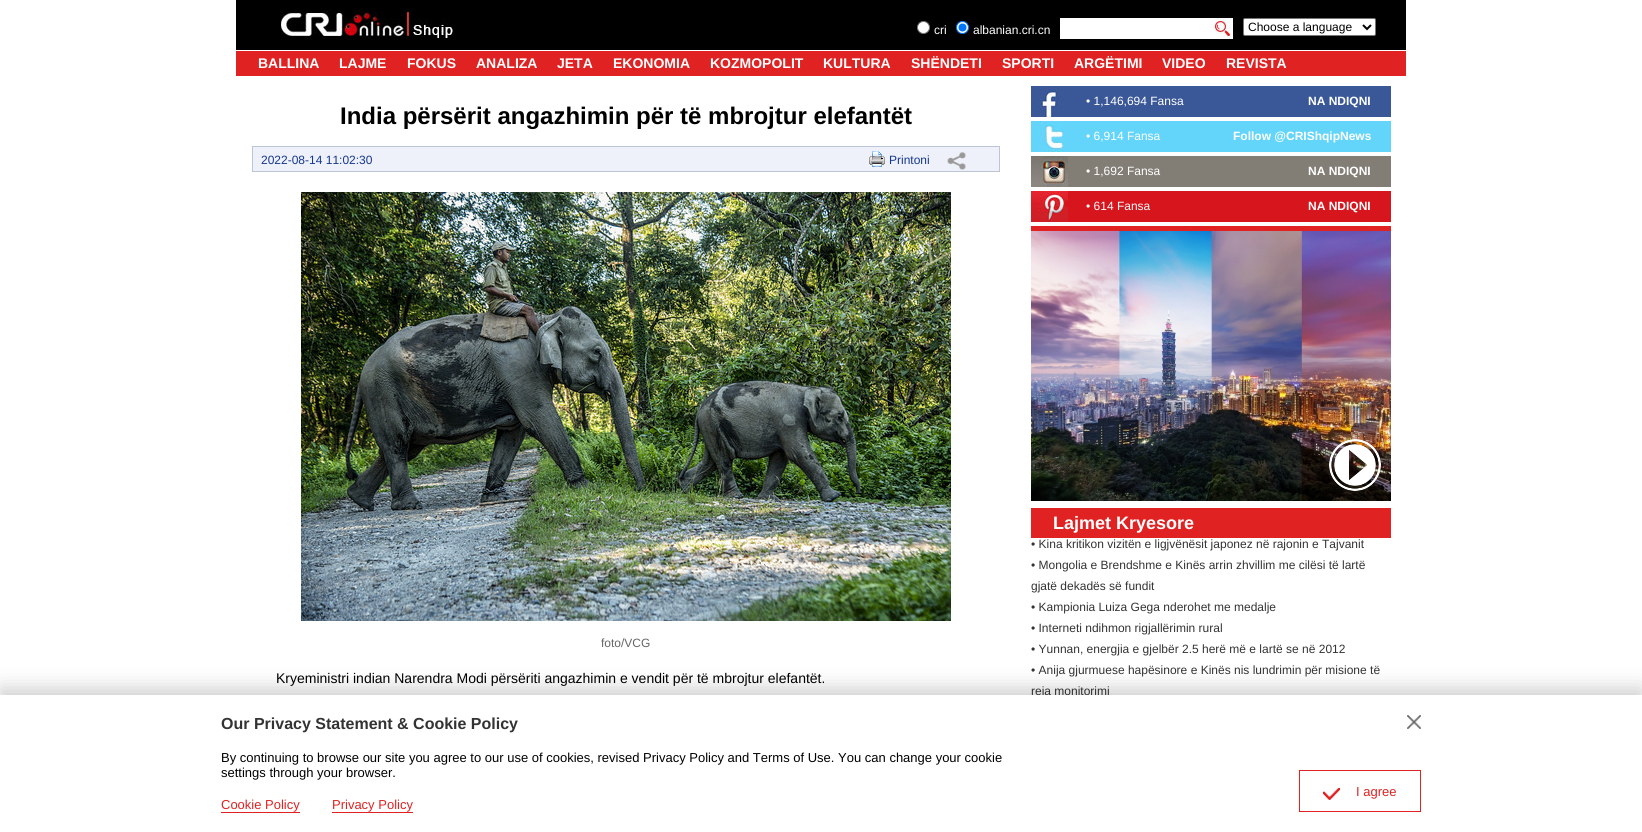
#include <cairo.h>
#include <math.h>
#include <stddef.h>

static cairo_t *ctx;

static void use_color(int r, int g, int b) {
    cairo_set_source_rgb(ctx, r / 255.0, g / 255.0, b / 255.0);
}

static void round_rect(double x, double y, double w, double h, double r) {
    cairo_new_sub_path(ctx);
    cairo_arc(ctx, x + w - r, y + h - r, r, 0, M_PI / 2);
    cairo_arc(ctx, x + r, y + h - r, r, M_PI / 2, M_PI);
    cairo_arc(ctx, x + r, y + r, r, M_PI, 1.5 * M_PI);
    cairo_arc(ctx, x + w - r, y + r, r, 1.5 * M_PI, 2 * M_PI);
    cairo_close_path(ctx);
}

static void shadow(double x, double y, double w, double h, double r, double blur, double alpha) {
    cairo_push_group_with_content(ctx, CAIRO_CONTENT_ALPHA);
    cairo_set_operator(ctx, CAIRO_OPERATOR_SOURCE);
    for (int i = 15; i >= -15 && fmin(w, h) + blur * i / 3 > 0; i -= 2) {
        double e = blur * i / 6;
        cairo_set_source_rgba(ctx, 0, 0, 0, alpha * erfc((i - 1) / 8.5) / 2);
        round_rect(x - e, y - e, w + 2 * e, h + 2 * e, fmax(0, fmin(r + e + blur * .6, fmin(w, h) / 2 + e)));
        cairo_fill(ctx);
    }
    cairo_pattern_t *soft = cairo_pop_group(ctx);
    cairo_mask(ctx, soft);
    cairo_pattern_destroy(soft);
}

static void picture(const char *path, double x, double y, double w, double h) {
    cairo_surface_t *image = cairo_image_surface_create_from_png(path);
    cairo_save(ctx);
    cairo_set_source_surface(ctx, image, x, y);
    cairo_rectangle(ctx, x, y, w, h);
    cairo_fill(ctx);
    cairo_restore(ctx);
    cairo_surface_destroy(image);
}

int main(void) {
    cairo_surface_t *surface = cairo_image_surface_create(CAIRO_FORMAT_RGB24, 1642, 832);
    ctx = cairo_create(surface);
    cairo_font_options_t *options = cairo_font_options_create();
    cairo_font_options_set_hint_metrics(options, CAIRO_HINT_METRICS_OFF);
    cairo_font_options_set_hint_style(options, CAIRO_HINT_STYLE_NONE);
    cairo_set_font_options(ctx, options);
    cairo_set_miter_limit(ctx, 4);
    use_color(255, 255, 255);
    cairo_paint(ctx);
    use_color(0, 0, 0);
    cairo_rectangle(ctx, 236, 0, 1170, 50);
    cairo_fill(ctx);
    picture("img1.png", 281, 10, 173, 30);
    use_color(255, 255, 255);
    cairo_arc(ctx, 923.5, 27.5, 6, 0, 2 * M_PI);
    cairo_fill_preserve(ctx);
    use_color(118, 118, 118);
    cairo_set_line_width(ctx, 1);
    cairo_stroke(ctx);
    cairo_select_font_face(ctx, "Liberation Sans", CAIRO_FONT_SLANT_NORMAL, CAIRO_FONT_WEIGHT_NORMAL);
    cairo_set_font_size(ctx, 12);
    use_color(255, 255, 255);
    cairo_move_to(ctx, 934, 34);
    cairo_show_text(ctx, "cri");
    cairo_new_path(ctx);
    cairo_arc(ctx, 962.5, 27.5, 6, 0, 2 * M_PI);
    cairo_fill_preserve(ctx);
    use_color(0, 117, 255);
    cairo_stroke(ctx);
    cairo_arc(ctx, 962.5, 27.5, 4, 0, 2 * M_PI);
    cairo_fill(ctx);
    use_color(255, 255, 255);
    cairo_move_to(ctx, 973, 34);
    cairo_show_text(ctx, "albanian.cri.cn");
    cairo_rectangle(ctx, 1060, 18, 155, 21);
    cairo_fill(ctx);
    picture("img2.png", 1215, 18, 18, 21);
    round_rect(1243.5, 18.5, 132, 17, 1.5);
    cairo_fill_preserve(ctx);
    use_color(118, 118, 118);
    cairo_stroke(ctx);
    cairo_new_path(ctx);
    cairo_move_to(ctx, 1363, 25);
    cairo_line_to(ctx, 1367, 29);
    cairo_line_to(ctx, 1371, 25);
    use_color(0, 0, 0);
    cairo_set_line_width(ctx, 2);
    cairo_stroke(ctx);
    cairo_move_to(ctx, 1248, 31);
    cairo_show_text(ctx, "Choose a language");
    use_color(224, 34, 34);
    cairo_rectangle(ctx, 236, 51, 1170, 25);
    cairo_fill(ctx);
    cairo_select_font_face(ctx, "Liberation Sans", CAIRO_FONT_SLANT_NORMAL, CAIRO_FONT_WEIGHT_BOLD);
    cairo_set_font_size(ctx, 14);
    use_color(255, 255, 255);
    cairo_move_to(ctx, 258, 68);
    cairo_show_text(ctx, "BALLINA");
    cairo_move_to(ctx, 339, 68);
    cairo_show_text(ctx, "LAJME");
    cairo_move_to(ctx, 407, 68);
    cairo_show_text(ctx, "FOKUS");
    cairo_move_to(ctx, 476, 68);
    cairo_show_text(ctx, "ANALIZA");
    cairo_move_to(ctx, 557, 68);
    cairo_show_text(ctx, "JETA");
    cairo_move_to(ctx, 613, 68);
    cairo_show_text(ctx, "EKONOMIA");
    cairo_move_to(ctx, 710, 68);
    cairo_show_text(ctx, "KOZMOPOLIT");
    cairo_move_to(ctx, 823, 68);
    cairo_show_text(ctx, "KULTURA");
    cairo_move_to(ctx, 911, 68);
    cairo_show_text(ctx, "SHËNDETI");
    cairo_move_to(ctx, 1002, 68);
    cairo_show_text(ctx, "SPORTI");
    cairo_move_to(ctx, 1074, 68);
    cairo_show_text(ctx, "ARGËTIMI");
    cairo_move_to(ctx, 1162, 68);
    cairo_show_text(ctx, "VIDEO");
    cairo_move_to(ctx, 1226, 68);
    cairo_show_text(ctx, "REVISTA");
    cairo_set_font_size(ctx, 24);
    use_color(0, 0, 0);
    cairo_move_to(ctx, 340, 124);
    cairo_show_text(ctx, "India përsërit angazhimin për të mbrojtur elefantët");
    use_color(238, 241, 249);
    cairo_rectangle(ctx, 252.5, 146.5, 747, 25);
    cairo_fill_preserve(ctx);
    use_color(189, 196, 213);
    cairo_set_line_width(ctx, 1);
    cairo_stroke(ctx);
    cairo_select_font_face(ctx, "Liberation Sans", CAIRO_FONT_SLANT_NORMAL, CAIRO_FONT_WEIGHT_NORMAL);
    cairo_set_font_size(ctx, 12);
    use_color(21, 55, 143);
    cairo_move_to(ctx, 261, 164);
    cairo_show_text(ctx, "2022-08-14 11:02:30");
    picture("img3.png", 869, 151, 16, 16);
    cairo_move_to(ctx, 889, 164);
    cairo_show_text(ctx, "Printoni");
    picture("img4.png", 947, 152, 19, 18);
    picture("img5.png", 301, 192, 650, 429);
    use_color(102, 102, 102);
    cairo_move_to(ctx, 601, 647);
    cairo_show_text(ctx, "foto/VCG");
    cairo_set_font_size(ctx, 14);
    use_color(0, 0, 0);
    cairo_move_to(ctx, 276, 683);
    cairo_show_text(ctx, "Kryeministri indian Narendra Modi përsëriti angazhimin e vendit për të mbrojtur elefantët.");
    use_color(58, 88, 151);
    cairo_rectangle(ctx, 1031, 86, 360, 31);
    cairo_fill(ctx);
    picture("img6.png", 1039, 86, 24, 31);
    cairo_set_font_size(ctx, 12);
    use_color(255, 255, 255);
    cairo_move_to(ctx, 1086, 105);
    cairo_show_text(ctx, "• 1,146,694 Fansa");
    cairo_select_font_face(ctx, "Liberation Sans", CAIRO_FONT_SLANT_NORMAL, CAIRO_FONT_WEIGHT_BOLD);
    cairo_move_to(ctx, 1308, 105);
    cairo_show_text(ctx, "NA NDIQNI");
    use_color(100, 213, 250);
    cairo_rectangle(ctx, 1031, 121, 360, 31);
    cairo_fill(ctx);
    picture("img7.png", 1039, 121, 24, 31);
    cairo_select_font_face(ctx, "Liberation Sans", CAIRO_FONT_SLANT_NORMAL, CAIRO_FONT_WEIGHT_NORMAL);
    use_color(255, 255, 255);
    cairo_move_to(ctx, 1086, 140);
    cairo_show_text(ctx, "• 6,914 Fansa");
    cairo_select_font_face(ctx, "Liberation Sans", CAIRO_FONT_SLANT_NORMAL, CAIRO_FONT_WEIGHT_BOLD);
    cairo_move_to(ctx, 1233, 140);
    cairo_show_text(ctx, "Follow @CRIShqipNews");
    use_color(130, 126, 118);
    cairo_rectangle(ctx, 1068, 156, 323, 31);
    cairo_fill(ctx);
    picture("img8.png", 1031, 156, 37, 31);
    cairo_select_font_face(ctx, "Liberation Sans", CAIRO_FONT_SLANT_NORMAL, CAIRO_FONT_WEIGHT_NORMAL);
    use_color(255, 255, 255);
    cairo_move_to(ctx, 1086, 175);
    cairo_show_text(ctx, "• 1,692 Fansa");
    cairo_select_font_face(ctx, "Liberation Sans", CAIRO_FONT_SLANT_NORMAL, CAIRO_FONT_WEIGHT_BOLD);
    cairo_move_to(ctx, 1308, 175);
    cairo_show_text(ctx, "NA NDIQNI");
    use_color(215, 21, 29);
    cairo_rectangle(ctx, 1068, 191, 323, 31);
    cairo_fill(ctx);
    picture("img9.png", 1031, 191, 37, 31);
    cairo_select_font_face(ctx, "Liberation Sans", CAIRO_FONT_SLANT_NORMAL, CAIRO_FONT_WEIGHT_NORMAL);
    use_color(255, 255, 255);
    cairo_move_to(ctx, 1086, 210);
    cairo_show_text(ctx, "• 614 Fansa");
    cairo_select_font_face(ctx, "Liberation Sans", CAIRO_FONT_SLANT_NORMAL, CAIRO_FONT_WEIGHT_BOLD);
    cairo_move_to(ctx, 1308, 210);
    cairo_show_text(ctx, "NA NDIQNI");
    use_color(224, 34, 34);
    cairo_rectangle(ctx, 1031, 226, 360, 5);
    cairo_fill(ctx);
    picture("img10.png", 1031, 231, 360, 270);
    picture("img11.png", 1329, 439, 52, 52);
    cairo_rectangle(ctx, 1031, 508, 360, 30);
    cairo_fill(ctx);
    cairo_set_font_size(ctx, 18);
    use_color(255, 255, 255);
    cairo_move_to(ctx, 1053, 529);
    cairo_show_text(ctx, "Lajmet Kryesore");
    cairo_select_font_face(ctx, "Liberation Sans", CAIRO_FONT_SLANT_NORMAL, CAIRO_FONT_WEIGHT_NORMAL);
    cairo_set_font_size(ctx, 12);
    use_color(51, 51, 51);
    cairo_move_to(ctx, 1031, 548);
    cairo_show_text(ctx, "• Kina kritikon vizitën e ligjvënësit japonez në rajonin e Tajvanit");
    cairo_move_to(ctx, 1031, 569);
    cairo_show_text(ctx, "• Mongolia e Brendshme e Kinës arrin zhvillim me cilësi të lartë");
    cairo_move_to(ctx, 1031, 590);
    cairo_show_text(ctx, "gjatë dekadës së fundit");
    cairo_move_to(ctx, 1031, 611);
    cairo_show_text(ctx, "• Kampionia Luiza Gega nderohet me medalje");
    cairo_move_to(ctx, 1031, 632);
    cairo_show_text(ctx, "• Interneti ndihmon rigjallërimin rural");
    cairo_move_to(ctx, 1031, 653);
    cairo_show_text(ctx, "• Yunnan, energjia e gjelbër 2.5 herë më e lartë se në 2012");
    cairo_move_to(ctx, 1031, 674);
    cairo_show_text(ctx, "• Anija gjurmuese hapësinore e Kinës nis lundrimin për misione të");
    cairo_move_to(ctx, 1031, 695);
    cairo_show_text(ctx, "reja monitorimi");
    use_color(0, 0, 0);
    shadow(0, 688, 1642, 137, 0, 10, 0.19);
    use_color(255, 255, 255);
    cairo_rectangle(ctx, 0, 695, 1642, 137);
    cairo_fill(ctx);
    cairo_select_font_face(ctx, "Liberation Sans", CAIRO_FONT_SLANT_NORMAL, CAIRO_FONT_WEIGHT_BOLD);
    cairo_set_font_size(ctx, 16);
    use_color(51, 51, 51);
    cairo_move_to(ctx, 221, 729);
    cairo_show_text(ctx, "Our Privacy Statement & Cookie Policy");
    picture("img12.png", 1407, 715, 14, 14);
    cairo_select_font_face(ctx, "Liberation Sans", CAIRO_FONT_SLANT_NORMAL, CAIRO_FONT_WEIGHT_NORMAL);
    cairo_set_font_size(ctx, 13);
    use_color(0, 0, 0);
    cairo_move_to(ctx, 221, 762);
    cairo_show_text(ctx, "By continuing to browse our site you agree to our use of cookies, revised Privacy Policy and Terms of Use. You can change your cookie");
    cairo_move_to(ctx, 221, 777);
    cairo_show_text(ctx, "settings through your browser.");
    cairo_rectangle(ctx, 1299.5, 770.5, 121, 41);
    use_color(224, 34, 34);
    cairo_stroke(ctx);
    picture("img13.png", 1323, 788, 17, 12);
    cairo_move_to(ctx, 1356, 796);
    cairo_show_text(ctx, "I agree");
    cairo_move_to(ctx, 221, 809);
    cairo_show_text(ctx, "Cookie Policy");
    cairo_rectangle(ctx, 221, 812, 79, 1);
    cairo_fill(ctx);
    cairo_move_to(ctx, 332, 809);
    cairo_show_text(ctx, "Privacy Policy");
    cairo_rectangle(ctx, 332, 812, 81, 1);
    cairo_fill(ctx);
    cairo_surface_write_to_png(surface, "result.png");
    cairo_font_options_destroy(options);
    cairo_destroy(ctx);
    cairo_surface_destroy(surface);
    return 0;
}
